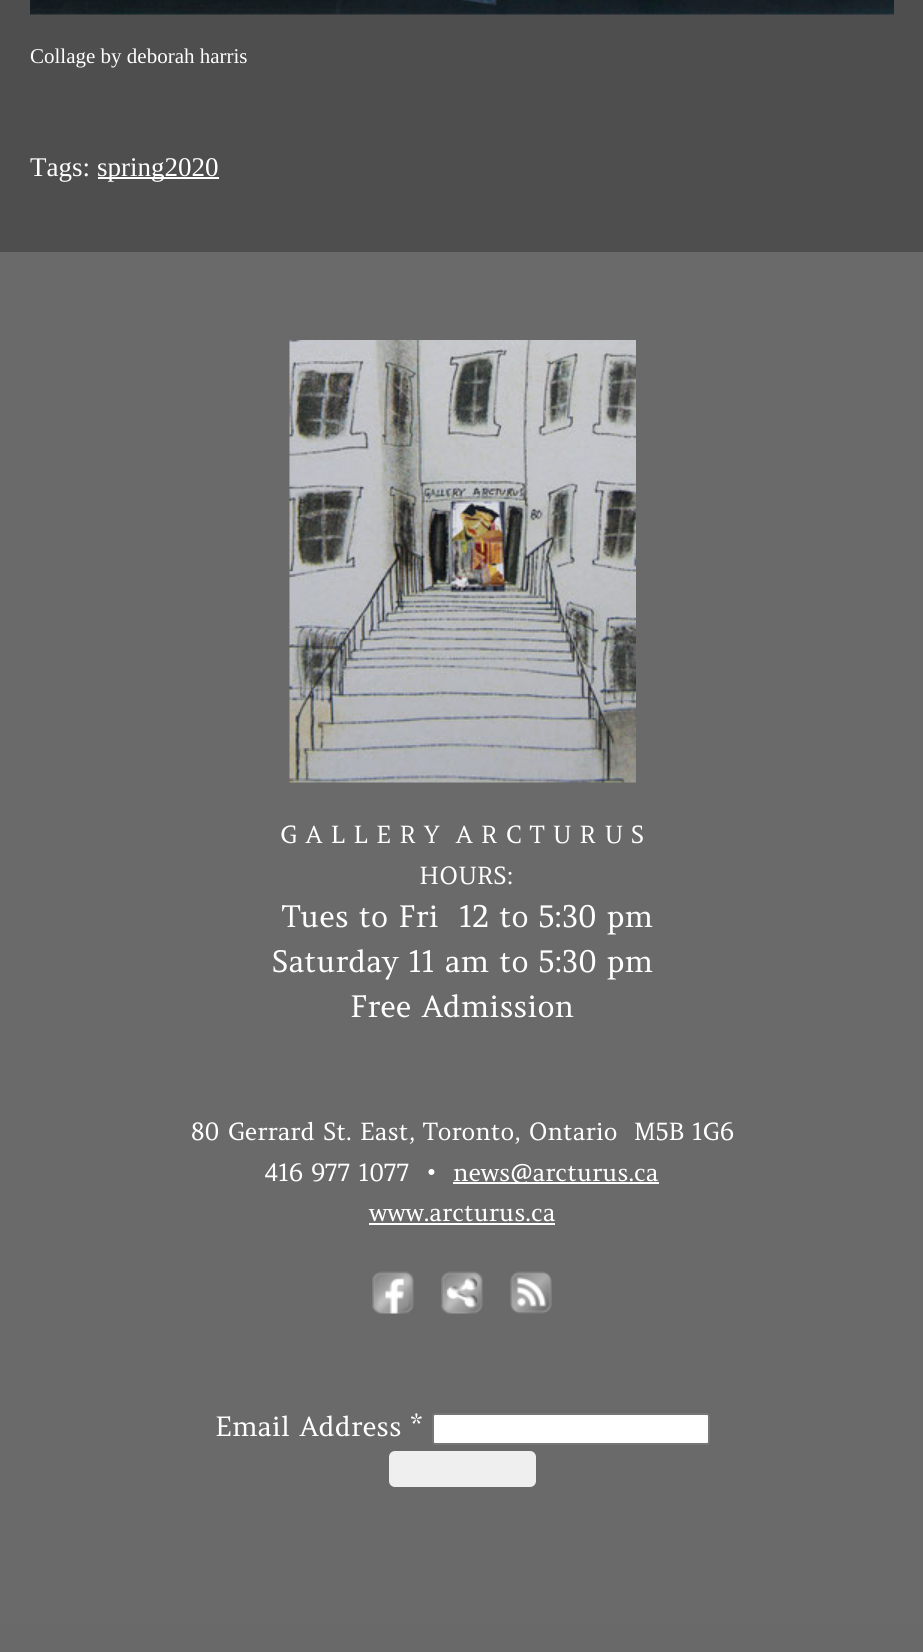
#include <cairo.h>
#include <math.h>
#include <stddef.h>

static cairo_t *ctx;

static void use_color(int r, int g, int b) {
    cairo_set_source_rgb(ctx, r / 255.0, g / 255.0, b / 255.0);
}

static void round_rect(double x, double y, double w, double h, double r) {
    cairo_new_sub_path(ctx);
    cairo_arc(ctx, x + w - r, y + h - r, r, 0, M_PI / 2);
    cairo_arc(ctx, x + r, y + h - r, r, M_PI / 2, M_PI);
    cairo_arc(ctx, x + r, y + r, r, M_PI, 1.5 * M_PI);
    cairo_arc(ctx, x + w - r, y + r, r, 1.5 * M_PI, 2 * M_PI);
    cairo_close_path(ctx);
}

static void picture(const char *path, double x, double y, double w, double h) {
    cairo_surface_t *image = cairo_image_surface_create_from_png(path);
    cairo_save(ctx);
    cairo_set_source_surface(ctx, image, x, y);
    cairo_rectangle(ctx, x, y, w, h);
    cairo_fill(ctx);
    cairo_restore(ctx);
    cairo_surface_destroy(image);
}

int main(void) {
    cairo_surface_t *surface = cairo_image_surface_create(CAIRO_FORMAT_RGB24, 923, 1652);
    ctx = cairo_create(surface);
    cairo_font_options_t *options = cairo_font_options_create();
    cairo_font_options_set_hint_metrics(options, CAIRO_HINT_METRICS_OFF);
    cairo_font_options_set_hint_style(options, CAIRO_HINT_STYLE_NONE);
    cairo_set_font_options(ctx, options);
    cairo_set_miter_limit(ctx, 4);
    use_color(78, 78, 78);
    cairo_paint(ctx);
    picture("img1.png", 30, 0, 864, 15);
    cairo_select_font_face(ctx, "Liberation Serif", CAIRO_FONT_SLANT_NORMAL, CAIRO_FONT_WEIGHT_NORMAL);
    cairo_set_font_size(ctx, 21);
    use_color(255, 255, 255);
    cairo_move_to(ctx, 30, 63);
    cairo_show_text(ctx, "Collage by deborah harris");
    cairo_set_font_size(ctx, 27);
    cairo_move_to(ctx, 30, 176);
    cairo_show_text(ctx, "Tags:");
    cairo_rectangle(ctx, 98, 177, 121, 2);
    cairo_fill(ctx);
    cairo_move_to(ctx, 97, 176);
    cairo_show_text(ctx, "spring2020");
    use_color(106, 106, 106);
    cairo_rectangle(ctx, 0, 252, 923, 1373);
    cairo_fill(ctx);
    picture("img2.png", 289, 340, 347, 443);
    cairo_select_font_face(ctx, "Amethysta", CAIRO_FONT_SLANT_NORMAL, CAIRO_FONT_WEIGHT_NORMAL);
    cairo_set_font_size(ctx, 24);
    use_color(255, 255, 255);
    cairo_move_to(ctx, 280, 843);
    cairo_show_text(ctx, "G A L L E R Y  A R C T U R U S");
    cairo_move_to(ctx, 419, 884);
    cairo_show_text(ctx, "HOURS:");
    cairo_set_font_size(ctx, 30);
    cairo_move_to(ctx, 282, 927);
    cairo_show_text(ctx, "Tues to Fri  12 to 5:30 pm");
    cairo_move_to(ctx, 272, 972);
    cairo_show_text(ctx, "Saturday 11 am to 5:30 pm");
    cairo_move_to(ctx, 350, 1017);
    cairo_show_text(ctx, "Free Admission");
    cairo_set_font_size(ctx, 24);
    cairo_move_to(ctx, 191, 1140);
    cairo_show_text(ctx, "80 Gerrard St. East, Toronto, Ontario  M5B 1G6");
    cairo_move_to(ctx, 265, 1181);
    cairo_show_text(ctx, "416 977 1077  •");
    cairo_rectangle(ctx, 453, 1182, 206, 2);
    cairo_fill(ctx);
    cairo_move_to(ctx, 453, 1181);
    cairo_show_text(ctx, "news@arcturus.ca");
    cairo_move_to(ctx, 369, 1221);
    cairo_show_text(ctx, "www.arcturus.ca");
    cairo_rectangle(ctx, 369, 1223, 186, 2);
    cairo_fill(ctx);
    picture("img3.png", 372, 1271, 42, 43);
    picture("img4.png", 441, 1271, 42, 43);
    picture("img5.png", 510, 1271, 42, 43);
    cairo_set_font_size(ctx, 27);
    cairo_move_to(ctx, 215, 1436);
    cairo_show_text(ctx, "Email Address *");
    round_rect(433, 1414, 276, 30, 2);
    cairo_fill_preserve(ctx);
    use_color(118, 118, 118);
    cairo_stroke(ctx);
    use_color(239, 239, 239);
    round_rect(389, 1451, 147, 36, 6);
    cairo_fill(ctx);
    use_color(105, 105, 105);
    cairo_rectangle(ctx, 0, 1625, 923, 27);
    cairo_fill(ctx);
    cairo_surface_write_to_png(surface, "result.png");
    cairo_font_options_destroy(options);
    cairo_destroy(ctx);
    cairo_surface_destroy(surface);
    return 0;
}
